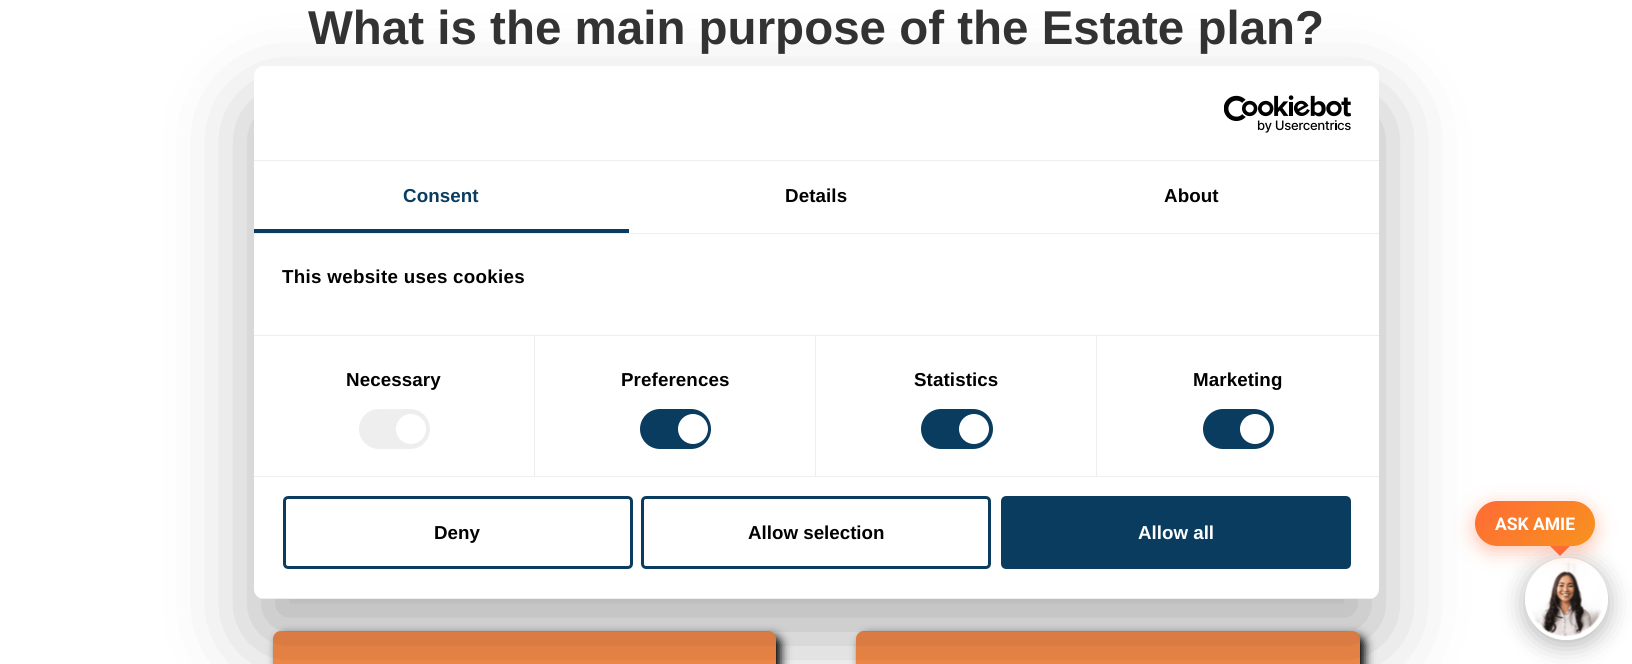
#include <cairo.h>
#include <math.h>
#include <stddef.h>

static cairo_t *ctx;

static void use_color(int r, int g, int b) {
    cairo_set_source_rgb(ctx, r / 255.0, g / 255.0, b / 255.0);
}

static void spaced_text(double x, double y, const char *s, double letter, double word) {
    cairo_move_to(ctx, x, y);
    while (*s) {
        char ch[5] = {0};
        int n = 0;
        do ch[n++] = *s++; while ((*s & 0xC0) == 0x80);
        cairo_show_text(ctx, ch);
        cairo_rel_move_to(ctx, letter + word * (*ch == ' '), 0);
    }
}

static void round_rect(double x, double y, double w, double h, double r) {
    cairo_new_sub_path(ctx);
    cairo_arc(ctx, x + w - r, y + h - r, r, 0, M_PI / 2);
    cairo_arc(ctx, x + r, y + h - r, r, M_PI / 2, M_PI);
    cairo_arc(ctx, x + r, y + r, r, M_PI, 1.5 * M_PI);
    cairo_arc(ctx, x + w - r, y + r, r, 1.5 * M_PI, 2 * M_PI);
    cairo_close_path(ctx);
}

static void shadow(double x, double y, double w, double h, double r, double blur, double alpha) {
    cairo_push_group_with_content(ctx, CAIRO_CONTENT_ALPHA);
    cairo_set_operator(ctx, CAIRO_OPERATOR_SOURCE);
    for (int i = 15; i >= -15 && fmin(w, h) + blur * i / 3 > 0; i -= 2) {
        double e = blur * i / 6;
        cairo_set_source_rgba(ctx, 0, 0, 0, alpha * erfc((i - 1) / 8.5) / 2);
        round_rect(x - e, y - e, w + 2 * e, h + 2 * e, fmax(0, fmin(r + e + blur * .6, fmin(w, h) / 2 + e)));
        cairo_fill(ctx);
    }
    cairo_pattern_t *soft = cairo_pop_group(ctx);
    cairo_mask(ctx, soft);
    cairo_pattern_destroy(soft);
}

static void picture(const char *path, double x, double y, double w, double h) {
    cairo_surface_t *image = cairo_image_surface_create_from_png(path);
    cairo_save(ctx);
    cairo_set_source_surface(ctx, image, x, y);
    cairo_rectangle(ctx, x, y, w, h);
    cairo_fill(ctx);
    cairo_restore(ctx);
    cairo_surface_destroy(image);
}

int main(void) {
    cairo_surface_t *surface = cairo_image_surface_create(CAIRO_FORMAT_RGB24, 1632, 664);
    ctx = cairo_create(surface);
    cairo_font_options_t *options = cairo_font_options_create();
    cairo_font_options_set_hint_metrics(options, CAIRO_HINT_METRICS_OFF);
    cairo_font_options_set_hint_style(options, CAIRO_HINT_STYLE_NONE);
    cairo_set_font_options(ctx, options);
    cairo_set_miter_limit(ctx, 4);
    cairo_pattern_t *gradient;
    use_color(255, 255, 255);
    cairo_paint(ctx);
    cairo_select_font_face(ctx, "Liberation Sans", CAIRO_FONT_SLANT_NORMAL, CAIRO_FONT_WEIGHT_BOLD);
    cairo_set_font_size(ctx, 47.5);
    use_color(51, 51, 51);
    cairo_move_to(ctx, 308, 44);
    cairo_show_text(ctx, "What is the main purpose of the Estate plan?");
    use_color(0, 0, 0);
    shadow(278, 636, 503, 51, 8, 5, 1);
    use_color(255, 145, 77);
    round_rect(273, 631, 503, 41, 8);
    cairo_fill(ctx);
    use_color(0, 0, 0);
    shadow(861, 636, 504, 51, 8, 5, 1);
    use_color(255, 145, 77);
    round_rect(856, 631, 504, 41, 8);
    cairo_fill(ctx);
    cairo_save(ctx);
    cairo_set_fill_rule(ctx, CAIRO_FILL_RULE_EVEN_ODD);
    cairo_new_path(ctx);
    cairo_move_to(ctx, 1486, 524);
    cairo_line_to(ctx, 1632, 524);
    cairo_line_to(ctx, 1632, 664);
    cairo_line_to(ctx, 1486, 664);
    cairo_close_path(ctx);
    cairo_move_to(ctx, 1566, 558);
    cairo_line_to(ctx, 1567, 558);
    cairo_curve_to(ctx, 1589.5, 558, 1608, 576.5, 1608, 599);
    cairo_curve_to(ctx, 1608, 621.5, 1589.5, 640, 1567, 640);
    cairo_line_to(ctx, 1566, 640);
    cairo_curve_to(ctx, 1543.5, 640, 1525, 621.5, 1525, 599);
    cairo_curve_to(ctx, 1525, 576.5, 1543.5, 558, 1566, 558);
    cairo_close_path(ctx);
    cairo_clip(ctx);
    use_color(0, 0, 0);
    shadow(1525, 563, 83, 82, 41, 12.5, 0.3);
    cairo_restore(ctx);
    picture("img2.png", 1532, 561, 70, 76);
    use_color(255, 107, 53);
    shadow(1475, 506, 120, 45, 22.5, 9.5, 0.4);
    gradient = cairo_pattern_create_linear(1494, 483, 1576, 565);
    cairo_pattern_add_color_stop_rgba(gradient, 0, 1, 0.42, 0.208, 1);
    cairo_pattern_add_color_stop_rgba(gradient, 1, 0.969, 0.576, 0.118, 1);
    cairo_set_source(ctx, gradient);
    cairo_pattern_destroy(gradient);
    round_rect(1475, 501, 120, 45, 22.5);
    cairo_fill(ctx);
    use_color(0, 0, 0);
    shadow(254, 106, 1125, 533, 10, 42.5, 0.3);
    use_color(255, 255, 255);
    round_rect(254, 66, 1125, 533, 10);
    cairo_fill(ctx);
    use_color(238, 238, 238);
    cairo_rectangle(ctx, 254, 160, 1125, 1);
    cairo_fill(ctx);
    picture("img1.png", 1224, 95, 127, 38);
    cairo_rectangle(ctx, 254, 233, 1125, 1);
    cairo_fill(ctx);
    use_color(10, 60, 95);
    cairo_rectangle(ctx, 254, 229, 375, 4);
    cairo_fill(ctx);
    cairo_set_font_size(ctx, 18.75);
    spaced_text(403, 202, "Consent", 0.1, 0);
    use_color(0, 0, 0);
    spaced_text(785, 202, "Details", 0.1, 0);
    spaced_text(1164, 202, "About", 0.1, 0);
    use_color(238, 238, 238);
    cairo_rectangle(ctx, 254, 335, 1125, 1);
    cairo_fill(ctx);
    use_color(0, 0, 0);
    spaced_text(282, 283, "This website uses cookies", 0.3, 0);
    use_color(238, 238, 238);
    cairo_rectangle(ctx, 254, 476, 1125, 1);
    cairo_fill(ctx);
    cairo_rectangle(ctx, 534, 336, 1, 140);
    cairo_fill(ctx);
    use_color(0, 0, 0);
    spaced_text(346, 386, "Necessary", 0.1, 0);
    use_color(238, 238, 238);
    round_rect(359, 409, 71, 40, 20);
    cairo_fill(ctx);
    use_color(255, 255, 255);
    cairo_arc(ctx, 411, 429, 15, 0, 2 * M_PI);
    cairo_fill(ctx);
    use_color(238, 238, 238);
    cairo_rectangle(ctx, 815, 336, 1, 140);
    cairo_fill(ctx);
    use_color(0, 0, 0);
    spaced_text(621, 386, "Preferences", 0.1, 0);
    use_color(10, 60, 95);
    round_rect(640, 409, 71, 40, 20);
    cairo_fill(ctx);
    use_color(255, 255, 255);
    cairo_arc(ctx, 693, 429, 15, 0, 2 * M_PI);
    cairo_fill(ctx);
    use_color(238, 238, 238);
    cairo_rectangle(ctx, 1096, 336, 1, 140);
    cairo_fill(ctx);
    use_color(0, 0, 0);
    spaced_text(914, 386, "Statistics", 0.1, 0);
    use_color(10, 60, 95);
    round_rect(921, 409, 72, 40, 20);
    cairo_fill(ctx);
    use_color(255, 255, 255);
    cairo_arc(ctx, 974, 429, 15, 0, 2 * M_PI);
    cairo_fill(ctx);
    use_color(0, 0, 0);
    spaced_text(1193, 386, "Marketing", 0.1, 0);
    use_color(10, 60, 95);
    round_rect(1203, 409, 71, 40, 20);
    cairo_fill(ctx);
    use_color(255, 255, 255);
    cairo_arc(ctx, 1255, 429, 15, 0, 2 * M_PI);
    cairo_fill(ctx);
    cairo_save(ctx);
    round_rect(254, 66, 1125, 533, 10);
    cairo_clip(ctx);
    use_color(238, 238, 238);
    cairo_rectangle(ctx, 254, 598, 1125, 1);
    cairo_fill(ctx);
    cairo_restore(ctx);
    round_rect(284.5, 497.5, 347, 70, 3.5);
    use_color(10, 60, 95);
    cairo_set_line_width(ctx, 3);
    cairo_stroke(ctx);
    use_color(0, 0, 0);
    cairo_move_to(ctx, 434, 539);
    cairo_show_text(ctx, "Deny");
    round_rect(642.5, 497.5, 347, 70, 3.5);
    use_color(10, 60, 95);
    cairo_stroke(ctx);
    use_color(0, 0, 0);
    cairo_move_to(ctx, 748, 539);
    cairo_show_text(ctx, "Allow selection");
    use_color(10, 60, 95);
    round_rect(1002.5, 497.5, 347, 70, 3.5);
    cairo_fill_preserve(ctx);
    cairo_stroke(ctx);
    use_color(255, 255, 255);
    cairo_move_to(ctx, 1138, 539);
    cairo_show_text(ctx, "Allow all");
    cairo_select_font_face(ctx, "Roboto", CAIRO_FONT_SLANT_NORMAL, CAIRO_FONT_WEIGHT_BOLD);
    cairo_set_font_size(ctx, 17.5);
    cairo_move_to(ctx, 1495, 530);
    cairo_show_text(ctx, "ASK AMIE");
    use_color(255, 107, 53);
    cairo_new_path(ctx);
    cairo_move_to(ctx, 1550, 546);
    cairo_line_to(ctx, 1570, 546);
    cairo_line_to(ctx, 1560, 556);
    cairo_close_path(ctx);
    cairo_fill(ctx);
    cairo_surface_write_to_png(surface, "result.png");
    cairo_font_options_destroy(options);
    cairo_destroy(ctx);
    cairo_surface_destroy(surface);
    return 0;
}
